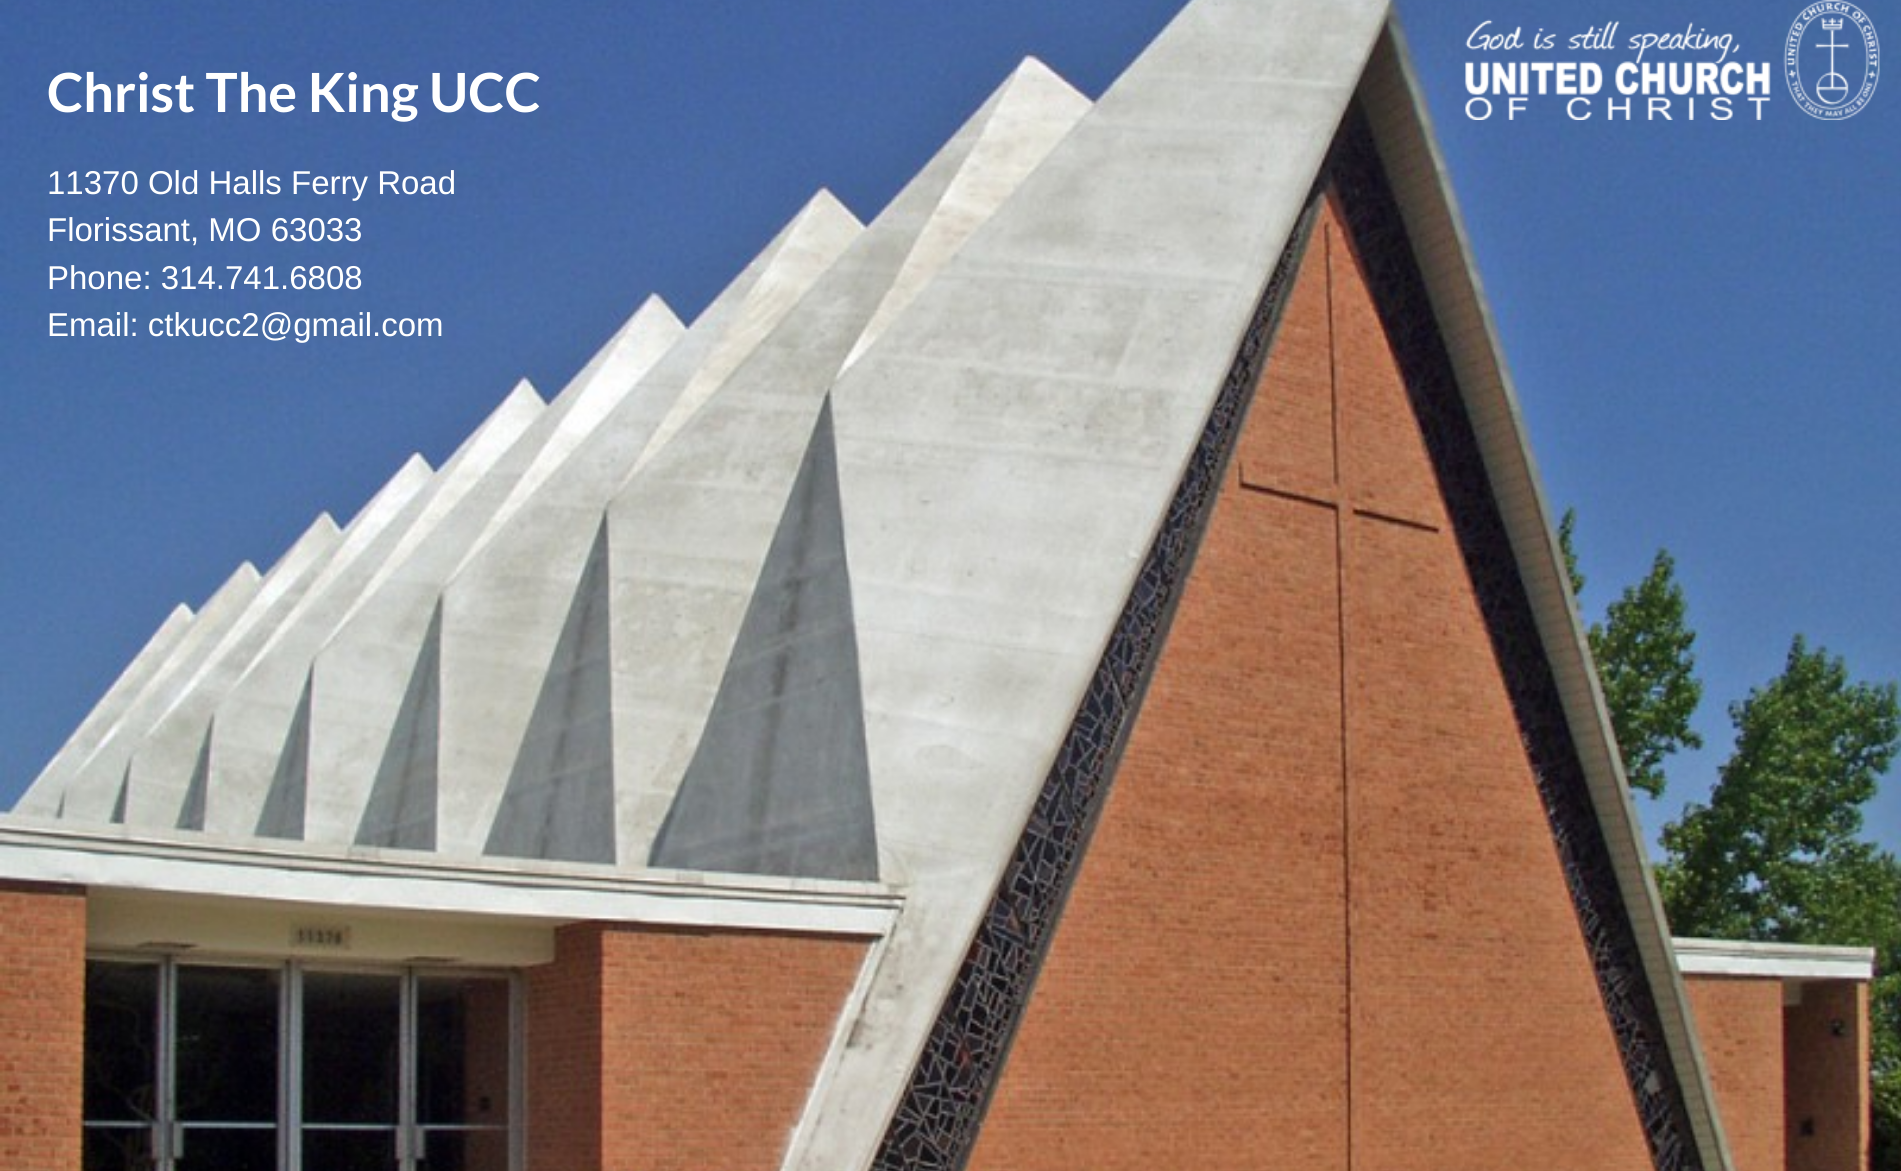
#include <cairo.h>
#include <math.h>
#include <stddef.h>

static cairo_t *ctx;

static void use_color(int r, int g, int b) {
    cairo_set_source_rgb(ctx, r / 255.0, g / 255.0, b / 255.0);
}

static void picture(const char *path, double x, double y, double w, double h) {
    cairo_surface_t *image = cairo_image_surface_create_from_png(path);
    cairo_save(ctx);
    cairo_set_source_surface(ctx, image, x, y);
    cairo_rectangle(ctx, x, y, w, h);
    cairo_fill(ctx);
    cairo_restore(ctx);
    cairo_surface_destroy(image);
}

int main(void) {
    cairo_surface_t *surface = cairo_image_surface_create(CAIRO_FORMAT_RGB24, 1901, 1171);
    ctx = cairo_create(surface);
    cairo_font_options_t *options = cairo_font_options_create();
    cairo_font_options_set_hint_metrics(options, CAIRO_HINT_METRICS_OFF);
    cairo_font_options_set_hint_style(options, CAIRO_HINT_STYLE_NONE);
    cairo_set_font_options(ctx, options);
    cairo_set_miter_limit(ctx, 4);
    use_color(255, 255, 255);
    cairo_paint(ctx);
    picture("img1.png", 0, 0, 1901, 1171);
    cairo_select_font_face(ctx, "Lato", CAIRO_FONT_SLANT_NORMAL, CAIRO_FONT_WEIGHT_BOLD);
    cairo_set_font_size(ctx, 54);
    use_color(255, 255, 255);
    cairo_move_to(ctx, 47, 112);
    cairo_show_text(ctx, "Christ The King UCC");
    cairo_select_font_face(ctx, "Liberation Sans", CAIRO_FONT_SLANT_NORMAL, CAIRO_FONT_WEIGHT_NORMAL);
    cairo_set_font_size(ctx, 33);
    cairo_move_to(ctx, 47, 194);
    cairo_show_text(ctx, "11370 Old Halls Ferry Road");
    cairo_move_to(ctx, 47, 241);
    cairo_show_text(ctx, "Florissant, MO 63033");
    cairo_move_to(ctx, 47, 289);
    cairo_show_text(ctx, "Phone: 314.741.6808");
    cairo_move_to(ctx, 47, 336);
    cairo_show_text(ctx, "Email: ctkucc2@gmail.com");
    picture("img2.png", 1465, 0, 415, 120);
    cairo_surface_write_to_png(surface, "result.png");
    cairo_font_options_destroy(options);
    cairo_destroy(ctx);
    cairo_surface_destroy(surface);
    return 0;
}
